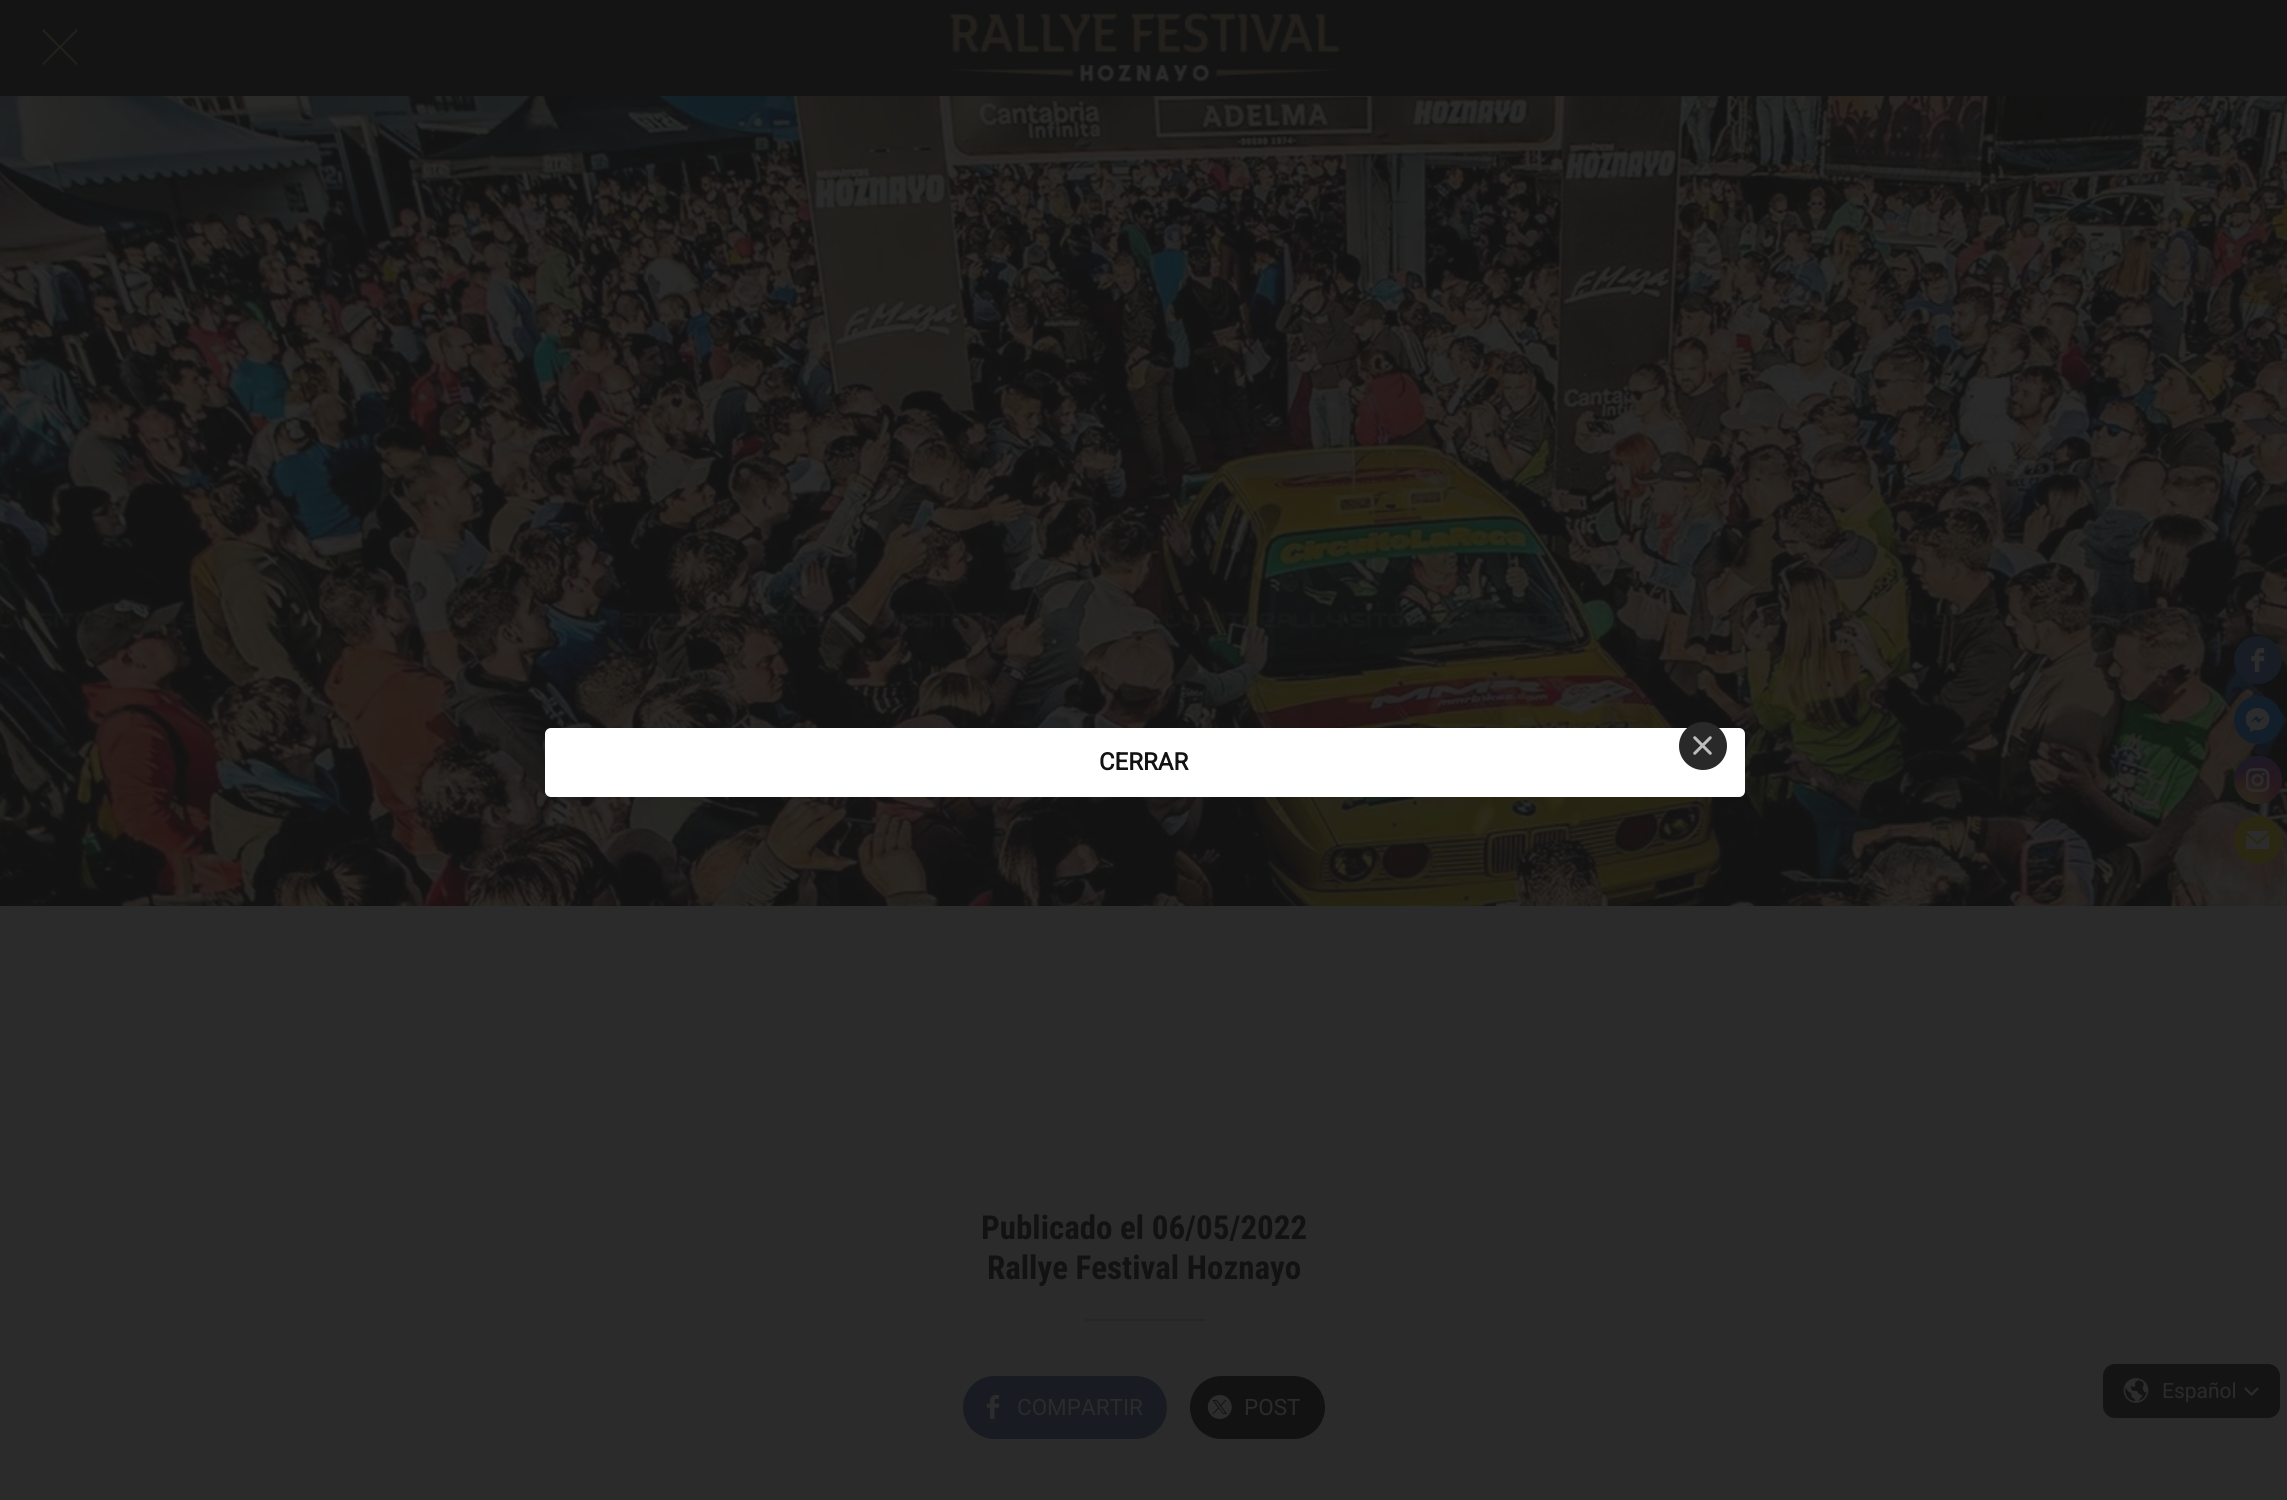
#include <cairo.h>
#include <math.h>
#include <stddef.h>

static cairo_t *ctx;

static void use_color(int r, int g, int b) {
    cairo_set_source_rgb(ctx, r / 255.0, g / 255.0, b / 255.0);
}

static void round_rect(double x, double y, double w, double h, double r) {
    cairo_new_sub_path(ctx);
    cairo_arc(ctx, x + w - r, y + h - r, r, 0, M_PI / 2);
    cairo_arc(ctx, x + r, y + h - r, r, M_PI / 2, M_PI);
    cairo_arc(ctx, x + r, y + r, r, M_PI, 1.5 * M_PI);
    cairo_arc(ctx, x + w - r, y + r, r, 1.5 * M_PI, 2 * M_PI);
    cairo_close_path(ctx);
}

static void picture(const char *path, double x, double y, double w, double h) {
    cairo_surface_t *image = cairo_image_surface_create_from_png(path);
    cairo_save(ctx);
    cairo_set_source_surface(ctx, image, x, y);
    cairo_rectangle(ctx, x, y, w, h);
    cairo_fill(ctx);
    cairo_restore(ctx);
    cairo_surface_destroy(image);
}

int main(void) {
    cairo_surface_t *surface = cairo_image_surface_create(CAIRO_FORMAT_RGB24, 2287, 1500);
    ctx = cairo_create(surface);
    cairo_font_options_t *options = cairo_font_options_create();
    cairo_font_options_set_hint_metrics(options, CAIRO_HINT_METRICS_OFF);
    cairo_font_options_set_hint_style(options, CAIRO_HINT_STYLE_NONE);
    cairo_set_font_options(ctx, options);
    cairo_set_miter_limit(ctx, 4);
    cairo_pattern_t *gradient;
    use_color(43, 43, 43);
    cairo_paint(ctx);
    picture("img7.png", 0, 96, 2287, 810);
    use_color(255, 255, 255);
    round_rect(545, 728, 1200, 69, 6);
    cairo_fill(ctx);
    cairo_select_font_face(ctx, "Roboto", CAIRO_FONT_SLANT_NORMAL, CAIRO_FONT_WEIGHT_BOLD);
    cairo_set_font_size(ctx, 24);
    use_color(18, 18, 18);
    cairo_move_to(ctx, 1099, 770);
    cairo_show_text(ctx, "CERRAR");
    use_color(41, 41, 41);
    cairo_new_path(ctx);
    cairo_arc(ctx, 1703, 746, 24, 0, 2 * M_PI);
    cairo_fill(ctx);
    picture("img1.png", 1693, 736, 19, 19);
    use_color(24, 28, 37);
    cairo_arc(ctx, 2258, 660, 24, 0, 2 * M_PI);
    cairo_fill(ctx);
    picture("img2.png", 2251, 648, 14, 24);
    use_color(18, 31, 43);
    cairo_arc(ctx, 2258, 720, 24, 0, 2 * M_PI);
    cairo_fill(ctx);
    picture("img3.png", 2246, 708, 24, 24);
    gradient = cairo_pattern_create_linear(2258, 756, 2258, 804);
    cairo_pattern_add_color_stop_rgba(gradient, 0, 0.11, 0.106, 0.149, 1);
    cairo_pattern_add_color_stop_rgba(gradient, 0.3, 0.145, 0.09, 0.125, 1);
    cairo_pattern_add_color_stop_rgba(gradient, 0.5, 0.161, 0.094, 0.11, 1);
    cairo_pattern_add_color_stop_rgba(gradient, 0.7, 0.169, 0.118, 0.094, 1);
    cairo_pattern_add_color_stop_rgba(gradient, 1, 0.169, 0.149, 0.114, 1);
    cairo_set_source(ctx, gradient);
    cairo_pattern_destroy(gradient);
    cairo_arc(ctx, 2258, 780, 24, 0, 2 * M_PI);
    cairo_fill(ctx);
    gradient = cairo_pattern_create_radial(2282, 804, 0, 2282, 804, 68);
    cairo_pattern_add_color_stop_rgba(gradient, 0, 0.157, 0.09, 0.118, 1);
    cairo_pattern_add_color_stop_rgba(gradient, 1, 0.157, 0.09, 0.118, 0);
    cairo_set_source(ctx, gradient);
    cairo_pattern_destroy(gradient);
    cairo_arc(ctx, 2258, 780, 24, 0, 2 * M_PI);
    cairo_fill(ctx);
    gradient = cairo_pattern_create_radial(0, 0, 0, 0, 0, 1);
    cairo_pattern_set_matrix(gradient, &(cairo_matrix_t){1.0 / 41, 0, 0, 1.0 / 81, -1.0 * 2262 / 41, -1.0 * 746 / 81});
    cairo_pattern_add_color_stop_rgba(gradient, 0, 0.125, 0.094, 0.145, 1);
    cairo_pattern_add_color_stop_rgba(gradient, 0.5, 0.125, 0.094, 0.145, 0);
    cairo_set_source(ctx, gradient);
    cairo_pattern_destroy(gradient);
    cairo_arc(ctx, 2258, 780, 24, 0, 2 * M_PI);
    cairo_fill(ctx);
    gradient = cairo_pattern_create_radial(2282, 756, 0, 2282, 756, 68);
    cairo_pattern_add_color_stop_rgba(gradient, 0, 0.125, 0.094, 0.145, 1);
    cairo_pattern_add_color_stop_rgba(gradient, 0.5, 0.125, 0.094, 0.145, 0);
    cairo_set_source(ctx, gradient);
    cairo_pattern_destroy(gradient);
    cairo_arc(ctx, 2258, 780, 24, 0, 2 * M_PI);
    cairo_fill(ctx);
    gradient = cairo_pattern_create_radial(0, 0, 0, 0, 0, 1);
    cairo_pattern_set_matrix(gradient, &(cairo_matrix_t){1.0 / 54, 0, 0, 1.0 / 102, -1.0 * 2243 / 54, -1.0 * 732 / 102});
    cairo_pattern_add_color_stop_rgba(gradient, 0, 0.102, 0.106, 0.153, 1);
    cairo_pattern_add_color_stop_rgba(gradient, 0.5, 0.102, 0.106, 0.153, 0);
    cairo_set_source(ctx, gradient);
    cairo_pattern_destroy(gradient);
    cairo_arc(ctx, 2258, 780, 24, 0, 2 * M_PI);
    cairo_fill(ctx);
    gradient = cairo_pattern_create_radial(0, 0, 0, 0, 0, 1);
    cairo_pattern_set_matrix(gradient, &(cairo_matrix_t){1.0 / 68, 0, 0, 1.0 / 85, -1.0 * 2234 / 68, -1.0 * 744 / 85});
    cairo_pattern_add_color_stop_rgba(gradient, 0, 0.102, 0.106, 0.153, 1);
    cairo_pattern_add_color_stop_rgba(gradient, 0.5, 0.102, 0.106, 0.153, 0);
    cairo_set_source(ctx, gradient);
    cairo_pattern_destroy(gradient);
    cairo_arc(ctx, 2258, 780, 24, 0, 2 * M_PI);
    cairo_fill(ctx);
    gradient = cairo_pattern_create_radial(2234, 823, 0, 2234, 823, 83);
    cairo_pattern_add_color_stop_rgba(gradient, 0, 0.169, 0.149, 0.11, 1);
    cairo_pattern_add_color_stop_rgba(gradient, 0.5, 0.169, 0.149, 0.11, 0);
    cairo_set_source(ctx, gradient);
    cairo_pattern_destroy(gradient);
    cairo_arc(ctx, 2258, 780, 24, 0, 2 * M_PI);
    cairo_fill(ctx);
    gradient = cairo_pattern_create_radial(2250, 799, 0, 2250, 799, 53);
    cairo_pattern_add_color_stop_rgba(gradient, 0, 0.169, 0.149, 0.11, 1);
    cairo_pattern_add_color_stop_rgba(gradient, 0.5, 0.169, 0.149, 0.11, 0);
    cairo_set_source(ctx, gradient);
    cairo_pattern_destroy(gradient);
    cairo_arc(ctx, 2258, 780, 24, 0, 2 * M_PI);
    cairo_fill(ctx);
    picture("img4.png", 2246, 768, 24, 24);
    use_color(42, 39, 19);
    cairo_arc(ctx, 2258, 840, 24, 0, 2 * M_PI);
    cairo_fill(ctx);
    picture("img5.png", 2246, 830, 24, 20);
    use_color(20, 20, 20);
    cairo_rectangle(ctx, 0, 0, 2287, 96);
    cairo_fill(ctx);
    use_color(36, 33, 28);
    cairo_new_path(ctx);
    cairo_move_to(ctx, 78, 30.5);
    cairo_line_to(ctx, 76.5, 29);
    cairo_line_to(ctx, 60, 46);
    cairo_line_to(ctx, 43.5, 29);
    cairo_line_to(ctx, 42, 30.5);
    cairo_line_to(ctx, 58.5, 47);
    cairo_line_to(ctx, 42, 64);
    cairo_line_to(ctx, 43.5, 65);
    cairo_line_to(ctx, 60, 48.5);
    cairo_line_to(ctx, 76.5, 65);
    cairo_line_to(ctx, 78, 64);
    cairo_line_to(ctx, 61.5, 47);
    cairo_close_path(ctx);
    cairo_fill(ctx);
    picture("img6.png", 938, 6, 412, 83);
    cairo_select_font_face(ctx, "Roboto Condensed", CAIRO_FONT_SLANT_NORMAL, CAIRO_FONT_WEIGHT_BOLD);
    cairo_set_font_size(ctx, 33);
    use_color(18, 18, 18);
    cairo_move_to(ctx, 981, 1239);
    cairo_show_text(ctx, "Publicado el 06/05/2022");
    cairo_move_to(ctx, 987, 1279);
    cairo_show_text(ctx, "Rallye Festival Hoznayo");
    use_color(38, 38, 38);
    cairo_rectangle(ctx, 1085, 1319, 120, 2);
    cairo_fill(ctx);
    use_color(24, 27, 33);
    round_rect(963, 1376, 204, 63, 31.5);
    cairo_fill(ctx);
    picture("img8.png", 986, 1395, 14, 24);
    cairo_select_font_face(ctx, "Roboto", CAIRO_FONT_SLANT_NORMAL, CAIRO_FONT_WEIGHT_NORMAL);
    cairo_set_font_size(ctx, 22.5);
    use_color(43, 43, 43);
    cairo_move_to(ctx, 1017, 1415);
    cairo_show_text(ctx, "COMPARTIR");
    use_color(18, 18, 18);
    round_rect(1190, 1376, 135, 63, 31.5);
    cairo_fill(ctx);
    picture("img9.png", 1207, 1395, 25, 24);
    use_color(43, 43, 43);
    cairo_move_to(ctx, 1244, 1415);
    cairo_show_text(ctx, "POST");
    use_color(20, 20, 20);
    round_rect(2103, 1364, 177, 54, 12);
    cairo_fill(ctx);
    picture("img10.png", 2123, 1378, 26, 25);
    cairo_set_font_size(ctx, 21);
    use_color(43, 43, 43);
    cairo_move_to(ctx, 2162, 1398);
    cairo_show_text(ctx, "Español");
    picture("img11.png", 2244, 1387, 15, 9);
    cairo_surface_write_to_png(surface, "result.png");
    cairo_font_options_destroy(options);
    cairo_destroy(ctx);
    cairo_surface_destroy(surface);
    return 0;
}
